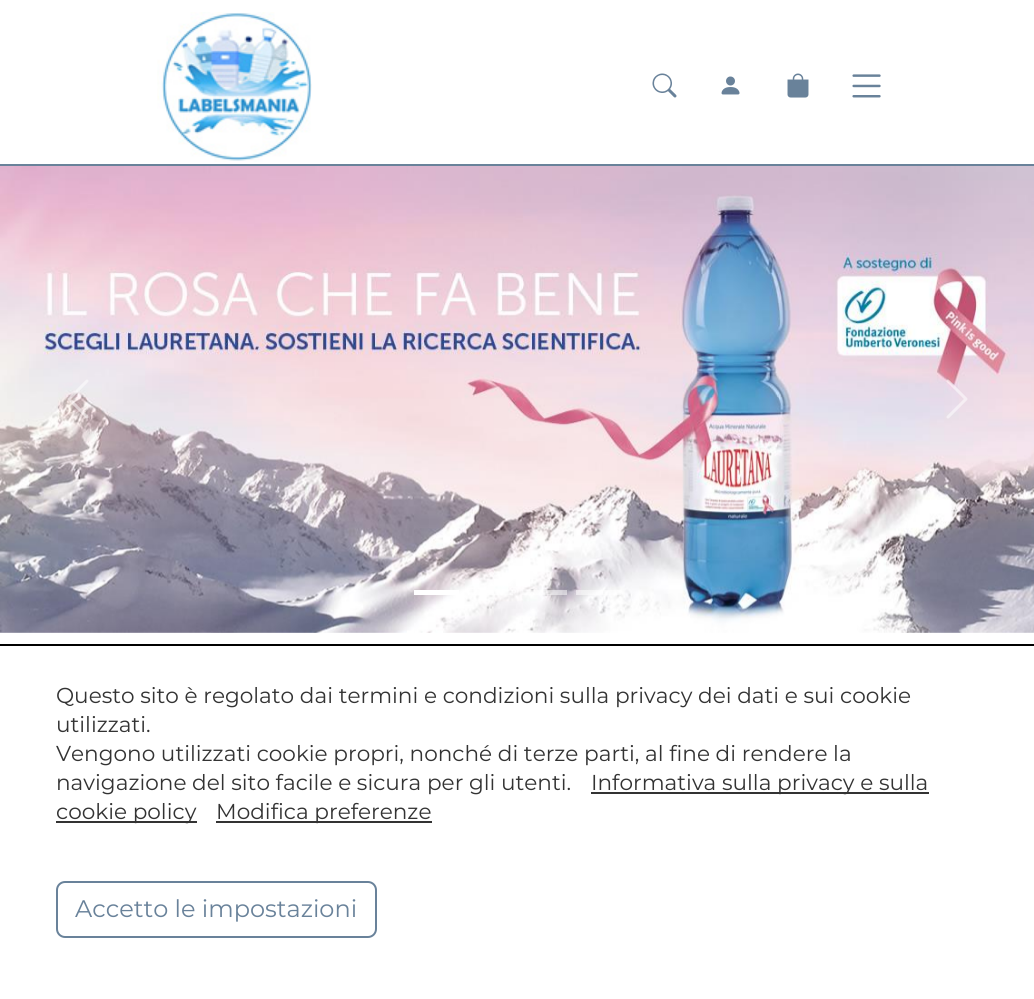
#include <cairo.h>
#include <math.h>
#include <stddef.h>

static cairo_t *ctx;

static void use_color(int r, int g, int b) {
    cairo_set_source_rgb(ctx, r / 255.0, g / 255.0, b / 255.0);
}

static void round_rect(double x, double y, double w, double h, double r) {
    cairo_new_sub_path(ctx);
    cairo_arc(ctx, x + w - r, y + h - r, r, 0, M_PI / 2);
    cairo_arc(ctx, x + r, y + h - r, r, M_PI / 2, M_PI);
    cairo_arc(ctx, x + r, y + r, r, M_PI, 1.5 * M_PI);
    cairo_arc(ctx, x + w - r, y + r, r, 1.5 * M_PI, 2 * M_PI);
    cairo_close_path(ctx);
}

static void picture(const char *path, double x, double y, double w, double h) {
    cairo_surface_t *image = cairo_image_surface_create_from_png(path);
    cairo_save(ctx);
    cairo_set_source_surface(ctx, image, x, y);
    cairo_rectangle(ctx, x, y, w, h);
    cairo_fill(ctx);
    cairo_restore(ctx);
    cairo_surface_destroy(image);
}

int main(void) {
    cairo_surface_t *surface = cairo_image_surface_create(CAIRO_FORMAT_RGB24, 1034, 999);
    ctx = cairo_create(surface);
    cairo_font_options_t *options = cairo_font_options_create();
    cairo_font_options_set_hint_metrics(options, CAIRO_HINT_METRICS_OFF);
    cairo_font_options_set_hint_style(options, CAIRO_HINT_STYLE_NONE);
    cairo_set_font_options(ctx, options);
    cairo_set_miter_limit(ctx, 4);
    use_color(255, 255, 255);
    cairo_paint(ctx);
    use_color(105, 130, 154);
    cairo_rectangle(ctx, 0, 164, 1034, 2);
    cairo_fill(ctx);
    picture("img1.png", 157, 12, 155, 150);
    picture("img2.png", 652, 73, 25, 25);
    picture("img3.png", 721, 76, 19, 19);
    picture("img4.png", 787, 73, 22, 25);
    picture("img5.png", 852, 74, 29, 24);
    picture("img6.png", 0, 166, 1034, 467);
    picture("img7.png", 67, 379, 22, 40);
    picture("img8.png", 946, 379, 22, 40);
    use_color(255, 255, 255);
    cairo_rectangle(ctx, 414, 590, 45, 5);
    cairo_fill(ctx);
    cairo_set_source_rgba(ctx, 1, 1, 1, 0.5);
    cairo_rectangle(ctx, 468, 590, 45, 5);
    cairo_fill(ctx);
    cairo_rectangle(ctx, 522, 590, 45, 5);
    cairo_fill(ctx);
    cairo_rectangle(ctx, 576, 590, 45, 5);
    cairo_fill(ctx);
    use_color(0, 0, 0);
    cairo_rectangle(ctx, 0, 644, 1034, 2);
    cairo_fill(ctx);
    cairo_select_font_face(ctx, "Montserrat", CAIRO_FONT_SLANT_NORMAL, CAIRO_FONT_WEIGHT_NORMAL);
    cairo_set_font_size(ctx, 21.6);
    use_color(51, 51, 51);
    cairo_move_to(ctx, 56, 703);
    cairo_show_text(ctx, "Questo sito è regolato dai termini e condizioni sulla privacy dei dati e sui cookie");
    cairo_move_to(ctx, 56, 732);
    cairo_show_text(ctx, "utilizzati.");
    cairo_move_to(ctx, 56, 761);
    cairo_show_text(ctx, "Vengono utilizzati cookie propri, nonché di terze parti, al fine di rendere la");
    cairo_move_to(ctx, 56, 790);
    cairo_show_text(ctx, "navigazione del sito facile e sicura per gli utenti.");
    cairo_rectangle(ctx, 591, 792, 338, 2);
    cairo_fill(ctx);
    cairo_move_to(ctx, 591, 790);
    cairo_show_text(ctx, "Informativa sulla privacy e sulla");
    cairo_rectangle(ctx, 56, 821, 141, 2);
    cairo_fill(ctx);
    cairo_move_to(ctx, 56, 819);
    cairo_show_text(ctx, "cookie policy");
    cairo_rectangle(ctx, 216, 821, 216, 2);
    cairo_fill(ctx);
    cairo_move_to(ctx, 216, 819);
    cairo_show_text(ctx, "Modifica preferenze");
    round_rect(57, 882, 319, 55, 8);
    use_color(105, 130, 154);
    cairo_stroke(ctx);
    cairo_set_font_size(ctx, 24);
    cairo_move_to(ctx, 75, 917);
    cairo_show_text(ctx, "Accetto le impostazioni");
    cairo_surface_write_to_png(surface, "result.png");
    cairo_font_options_destroy(options);
    cairo_destroy(ctx);
    cairo_surface_destroy(surface);
    return 0;
}
